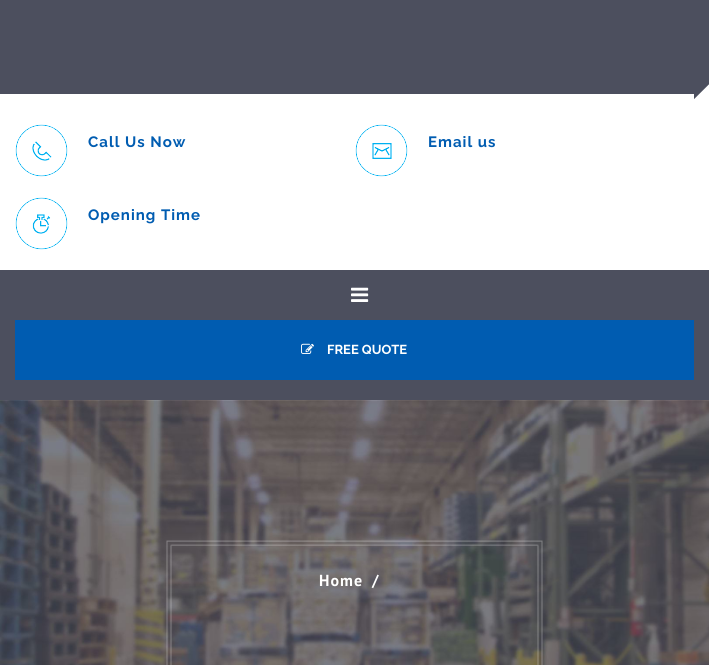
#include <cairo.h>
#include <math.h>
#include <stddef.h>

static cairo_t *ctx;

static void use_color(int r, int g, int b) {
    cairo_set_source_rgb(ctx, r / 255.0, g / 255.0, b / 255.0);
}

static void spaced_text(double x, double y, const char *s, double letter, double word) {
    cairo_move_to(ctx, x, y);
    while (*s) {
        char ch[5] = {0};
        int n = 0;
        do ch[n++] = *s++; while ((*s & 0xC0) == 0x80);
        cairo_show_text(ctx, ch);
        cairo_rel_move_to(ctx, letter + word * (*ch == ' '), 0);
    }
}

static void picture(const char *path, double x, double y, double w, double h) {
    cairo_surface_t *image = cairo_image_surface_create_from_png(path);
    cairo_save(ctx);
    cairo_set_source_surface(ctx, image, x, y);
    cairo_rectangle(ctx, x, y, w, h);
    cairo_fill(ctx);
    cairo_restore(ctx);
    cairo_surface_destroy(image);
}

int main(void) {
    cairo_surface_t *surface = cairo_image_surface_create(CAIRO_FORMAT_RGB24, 709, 665);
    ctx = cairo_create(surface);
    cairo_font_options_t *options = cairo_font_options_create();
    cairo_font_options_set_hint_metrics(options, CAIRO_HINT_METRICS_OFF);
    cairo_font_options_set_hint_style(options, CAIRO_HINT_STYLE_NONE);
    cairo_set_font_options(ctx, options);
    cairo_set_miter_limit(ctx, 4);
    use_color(255, 255, 255);
    cairo_paint(ctx);
    use_color(76, 79, 94);
    cairo_rectangle(ctx, 0, 0, 673, 94);
    cairo_fill(ctx);
    cairo_rectangle(ctx, 673, 0, 36, 100);
    cairo_fill(ctx);
    picture("img1.png", 694, 84, 15, 36);
    use_color(255, 255, 255);
    cairo_rectangle(ctx, 673, 94, 21, 6);
    cairo_fill(ctx);
    picture("img2.png", 15, 124, 53, 53);
    cairo_select_font_face(ctx, "Raleway", CAIRO_FONT_SLANT_NORMAL, CAIRO_FONT_WEIGHT_BOLD);
    cairo_set_font_size(ctx, 15);
    use_color(0, 92, 177);
    spaced_text(88, 147, "Call Us Now", 1, 0);
    picture("img3.png", 355, 124, 53, 53);
    spaced_text(428, 147, "Email us", 1, 0);
    picture("img4.png", 15, 197, 53, 53);
    spaced_text(88, 220, "Opening Time", 1, 0);
    use_color(76, 79, 94);
    cairo_rectangle(ctx, 0, 270, 709, 130);
    cairo_fill(ctx);
    picture("img5.png", 351, 287, 18, 15);
    use_color(0, 92, 177);
    cairo_rectangle(ctx, 15, 320, 679, 60);
    cairo_fill(ctx);
    picture("img6.png", 301, 343, 13, 11);
    cairo_set_font_size(ctx, 13);
    use_color(255, 255, 255);
    cairo_move_to(ctx, 327, 354);
    cairo_show_text(ctx, "FREE QUOTE");
    picture("img7.png", 0, 400, 709, 265);
    picture("img8.png", 166, 540, 377, 125);
    cairo_select_font_face(ctx, "PT Sans", CAIRO_FONT_SLANT_NORMAL, CAIRO_FONT_WEIGHT_BOLD);
    cairo_set_font_size(ctx, 16);
    spaced_text(319, 586, "Home", 1, 0);
    spaced_text(372, 586, "/", 1, 0);
    cairo_surface_write_to_png(surface, "result.png");
    cairo_font_options_destroy(options);
    cairo_destroy(ctx);
    cairo_surface_destroy(surface);
    return 0;
}
